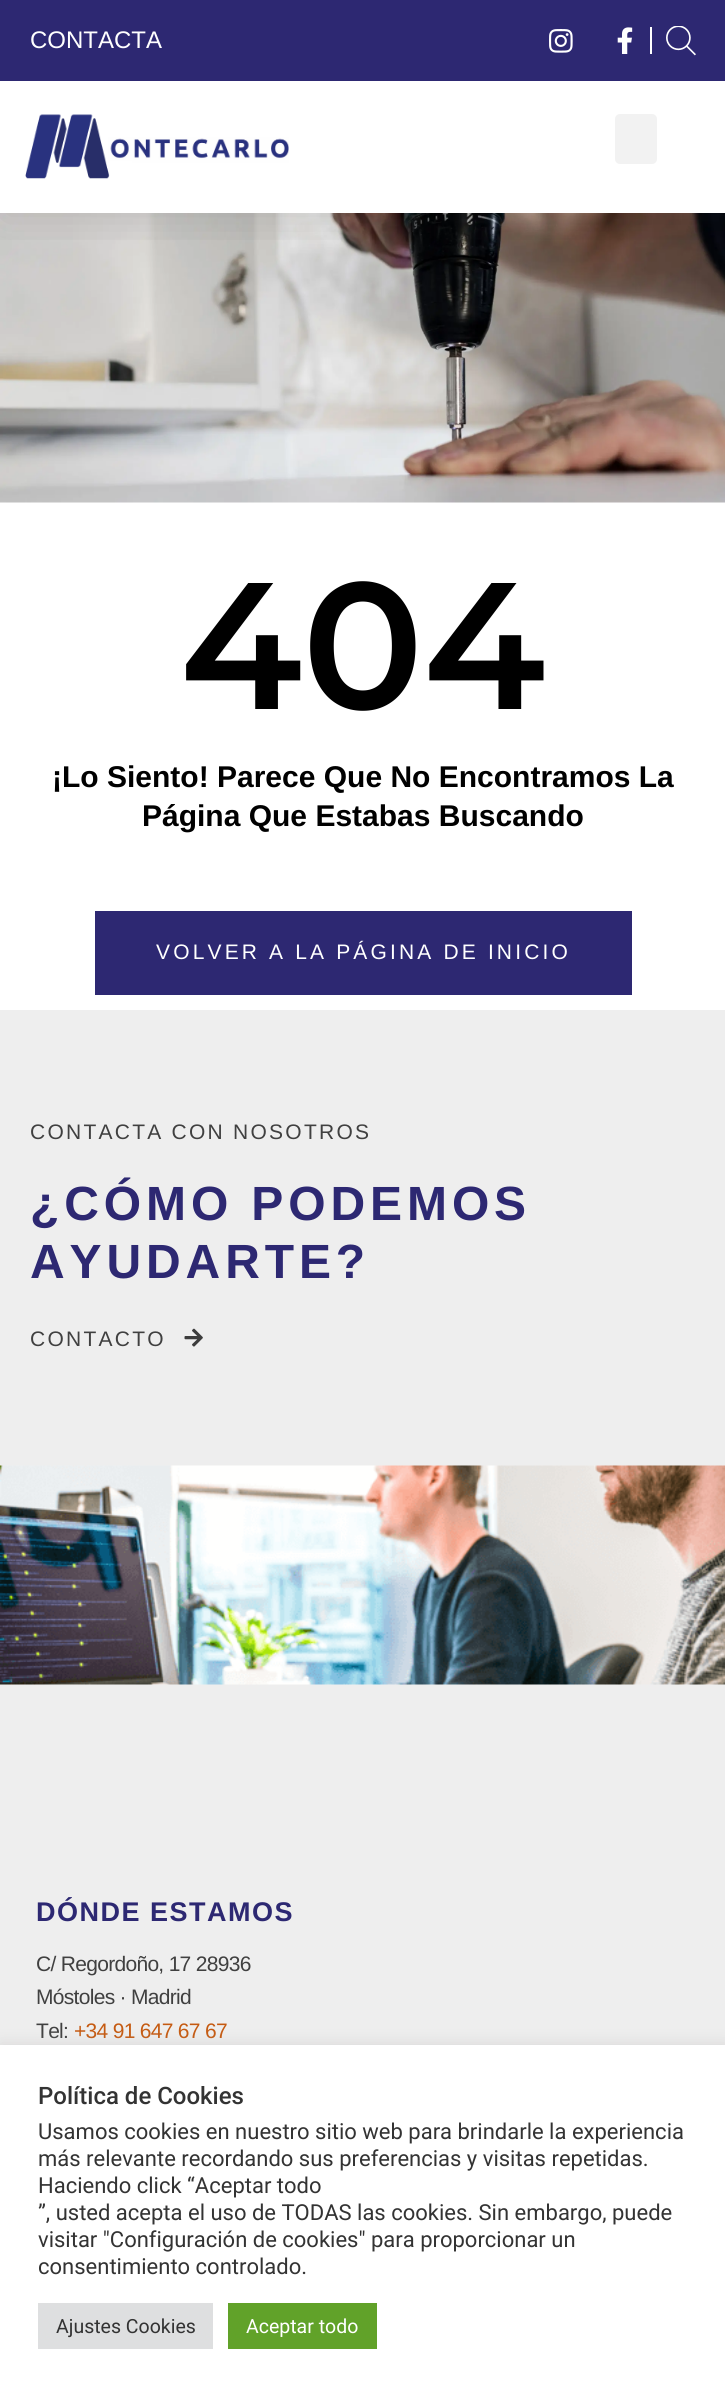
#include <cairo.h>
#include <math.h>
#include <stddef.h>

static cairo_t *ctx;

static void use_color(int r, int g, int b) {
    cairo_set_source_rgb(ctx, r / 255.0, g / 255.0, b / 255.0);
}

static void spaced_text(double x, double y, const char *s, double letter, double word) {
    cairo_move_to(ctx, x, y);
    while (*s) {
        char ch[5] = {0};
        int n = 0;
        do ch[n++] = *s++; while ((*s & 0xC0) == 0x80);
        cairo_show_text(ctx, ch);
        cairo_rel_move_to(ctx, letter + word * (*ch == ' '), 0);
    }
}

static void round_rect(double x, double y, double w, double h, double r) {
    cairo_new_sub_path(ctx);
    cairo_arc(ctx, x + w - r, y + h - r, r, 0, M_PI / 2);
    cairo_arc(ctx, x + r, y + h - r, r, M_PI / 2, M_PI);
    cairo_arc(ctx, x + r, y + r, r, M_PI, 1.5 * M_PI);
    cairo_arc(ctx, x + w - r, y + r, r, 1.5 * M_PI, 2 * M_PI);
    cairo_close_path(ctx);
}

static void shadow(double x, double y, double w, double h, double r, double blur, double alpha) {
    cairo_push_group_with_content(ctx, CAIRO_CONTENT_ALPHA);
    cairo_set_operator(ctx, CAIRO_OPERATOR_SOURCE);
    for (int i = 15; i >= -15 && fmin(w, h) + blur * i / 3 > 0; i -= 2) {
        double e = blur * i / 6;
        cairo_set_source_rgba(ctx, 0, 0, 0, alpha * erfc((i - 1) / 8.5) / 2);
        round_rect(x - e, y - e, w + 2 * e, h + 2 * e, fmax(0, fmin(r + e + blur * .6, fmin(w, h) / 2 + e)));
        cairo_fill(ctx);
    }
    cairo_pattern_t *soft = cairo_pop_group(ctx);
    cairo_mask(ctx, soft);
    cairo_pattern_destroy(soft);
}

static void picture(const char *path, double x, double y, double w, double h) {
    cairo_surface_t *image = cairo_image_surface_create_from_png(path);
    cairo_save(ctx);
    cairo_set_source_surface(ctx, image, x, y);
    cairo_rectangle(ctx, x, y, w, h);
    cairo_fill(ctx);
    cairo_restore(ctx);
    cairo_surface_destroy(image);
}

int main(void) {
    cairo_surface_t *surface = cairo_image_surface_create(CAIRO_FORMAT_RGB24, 725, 2394);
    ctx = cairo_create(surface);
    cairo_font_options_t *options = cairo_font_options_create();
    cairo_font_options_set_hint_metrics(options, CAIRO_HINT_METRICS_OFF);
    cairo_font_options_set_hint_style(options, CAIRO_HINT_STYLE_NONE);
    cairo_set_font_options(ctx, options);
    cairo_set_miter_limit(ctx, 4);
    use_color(255, 255, 255);
    cairo_paint(ctx);
    picture("img5.png", 0, 213, 725, 290);
    cairo_save(ctx);
    cairo_rectangle(ctx, 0, 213, 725, 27);
    cairo_clip(ctx);
    use_color(0, 0, 0);
    shadow(0, 8, 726, 213, 0, 22.5, 0.1);
    cairo_restore(ctx);
    use_color(45, 40, 114);
    cairo_rectangle(ctx, 0, 0, 725, 81);
    cairo_fill(ctx);
    cairo_select_font_face(ctx, "Liberation Sans", CAIRO_FONT_SLANT_NORMAL, CAIRO_FONT_WEIGHT_NORMAL);
    cairo_set_font_size(ctx, 24);
    use_color(255, 255, 255);
    cairo_move_to(ctx, 30, 48);
    cairo_show_text(ctx, "CONTACTA");
    cairo_rectangle(ctx, 650, 27, 2, 27);
    cairo_fill(ctx);
    picture("img1.png", 549, 29, 24, 24);
    picture("img2.png", 617, 27, 16, 27);
    picture("img3.png", 666, 26, 30, 30);
    picture("img4.png", 25, 114, 264, 65);
    use_color(242, 242, 242);
    round_rect(615, 114, 42, 50, 5);
    cairo_fill(ctx);
    cairo_select_font_face(ctx, "Montserrat SemiBold", CAIRO_FONT_SLANT_NORMAL, CAIRO_FONT_WEIGHT_NORMAL);
    cairo_set_font_size(ctx, 180);
    use_color(0, 0, 0);
    cairo_move_to(ctx, 180, 709);
    cairo_show_text(ctx, "404");
    cairo_select_font_face(ctx, "Liberation Sans", CAIRO_FONT_SLANT_NORMAL, CAIRO_FONT_WEIGHT_BOLD);
    cairo_set_font_size(ctx, 30);
    cairo_move_to(ctx, 52, 787);
    cairo_show_text(ctx, "¡Lo Siento! Parece Que No Encontramos La");
    cairo_move_to(ctx, 142, 826);
    cairo_show_text(ctx, "Página Que Estabas Buscando");
    use_color(45, 40, 114);
    cairo_rectangle(ctx, 95, 911, 537, 84);
    cairo_fill(ctx);
    cairo_select_font_face(ctx, "Liberation Sans", CAIRO_FONT_SLANT_NORMAL, CAIRO_FONT_WEIGHT_NORMAL);
    cairo_set_font_size(ctx, 21);
    use_color(255, 255, 255);
    spaced_text(156, 959, "VOLVER A LA PÁGINA DE INICIO", 3.15, 0);
    use_color(238, 238, 238);
    cairo_rectangle(ctx, 0, 1010, 725, 1035);
    cairo_fill(ctx);
    use_color(64, 64, 64);
    spaced_text(30, 1139, "CONTACTA CON NOSOTROS", 2.25, 0);
    cairo_select_font_face(ctx, "Liberation Sans", CAIRO_FONT_SLANT_NORMAL, CAIRO_FONT_WEIGHT_BOLD);
    cairo_set_font_size(ctx, 48);
    use_color(45, 40, 114);
    spaced_text(30, 1220, "¿CÓMO PODEMOS", 4.9, 0);
    spaced_text(30, 1278, "AYUDARTE?", 4.9, 0);
    cairo_select_font_face(ctx, "Liberation Sans", CAIRO_FONT_SLANT_NORMAL, CAIRO_FONT_WEIGHT_NORMAL);
    cairo_set_font_size(ctx, 21);
    use_color(64, 64, 64);
    spaced_text(30, 1346, "CONTACTO", 2.25, 0);
    picture("img6.png", 184, 1328, 19, 19);
    picture("img7.png", 0, 1465, 725, 220);
    cairo_select_font_face(ctx, "Liberation Sans", CAIRO_FONT_SLANT_NORMAL, CAIRO_FONT_WEIGHT_BOLD);
    cairo_set_font_size(ctx, 27);
    use_color(45, 40, 114);
    spaced_text(36, 1921, "DÓNDE ESTAMOS", 1.5, 0);
    cairo_select_font_face(ctx, "Liberation Sans", CAIRO_FONT_SLANT_NORMAL, CAIRO_FONT_WEIGHT_NORMAL);
    cairo_set_font_size(ctx, 21);
    use_color(64, 64, 64);
    spaced_text(36, 1971, "C/ Regordoño, 17 28936", -0.7, 0);
    spaced_text(36, 2004, "Móstoles · Madrid", -0.7, 0);
    spaced_text(36, 2038, "Tel:", -0.7, 0);
    use_color(197, 90, 17);
    spaced_text(74, 2038, "+34 91 647 67 67", -0.7, 0);
    use_color(172, 171, 171);
    shadow(0, 2043, 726, 350, 0, 7.5, 0.3);
    use_color(255, 255, 255);
    cairo_rectangle(ctx, 0, 2045, 725, 349);
    cairo_fill(ctx);
    cairo_select_font_face(ctx, "Roboto Medium", CAIRO_FONT_SLANT_NORMAL, CAIRO_FONT_WEIGHT_NORMAL);
    cairo_set_font_size(ctx, 24);
    use_color(51, 51, 51);
    cairo_move_to(ctx, 38, 2104);
    cairo_show_text(ctx, "Política de Cookies");
    cairo_select_font_face(ctx, "Roboto", CAIRO_FONT_SLANT_NORMAL, CAIRO_FONT_WEIGHT_NORMAL);
    cairo_set_font_size(ctx, 22);
    cairo_move_to(ctx, 38, 2139);
    cairo_show_text(ctx, "Usamos cookies en nuestro sitio web para brindarle la experiencia");
    cairo_move_to(ctx, 38, 2166);
    cairo_show_text(ctx, "más relevante recordando sus preferencias y visitas repetidas.");
    cairo_move_to(ctx, 38, 2193);
    cairo_show_text(ctx, "Haciendo click “Aceptar todo");
    cairo_move_to(ctx, 38, 2220);
    cairo_show_text(ctx, "”, usted acepta el uso de TODAS las cookies. Sin embargo, puede");
    cairo_move_to(ctx, 38, 2247);
    cairo_show_text(ctx, "visitar \"Configuración de cookies\" para proporcionar un");
    cairo_move_to(ctx, 38, 2274);
    cairo_show_text(ctx, "consentimiento controlado.");
    use_color(222, 223, 224);
    cairo_rectangle(ctx, 38, 2303, 175, 46);
    cairo_fill(ctx);
    cairo_set_font_size(ctx, 19.5);
    use_color(51, 51, 51);
    cairo_move_to(ctx, 56, 2333);
    cairo_show_text(ctx, "Ajustes Cookies");
    use_color(97, 162, 41);
    cairo_rectangle(ctx, 228, 2303, 149, 46);
    cairo_fill(ctx);
    use_color(255, 255, 255);
    cairo_move_to(ctx, 246, 2333);
    cairo_show_text(ctx, "Aceptar todo");
    cairo_surface_write_to_png(surface, "result.png");
    cairo_font_options_destroy(options);
    cairo_destroy(ctx);
    cairo_surface_destroy(surface);
    return 0;
}
